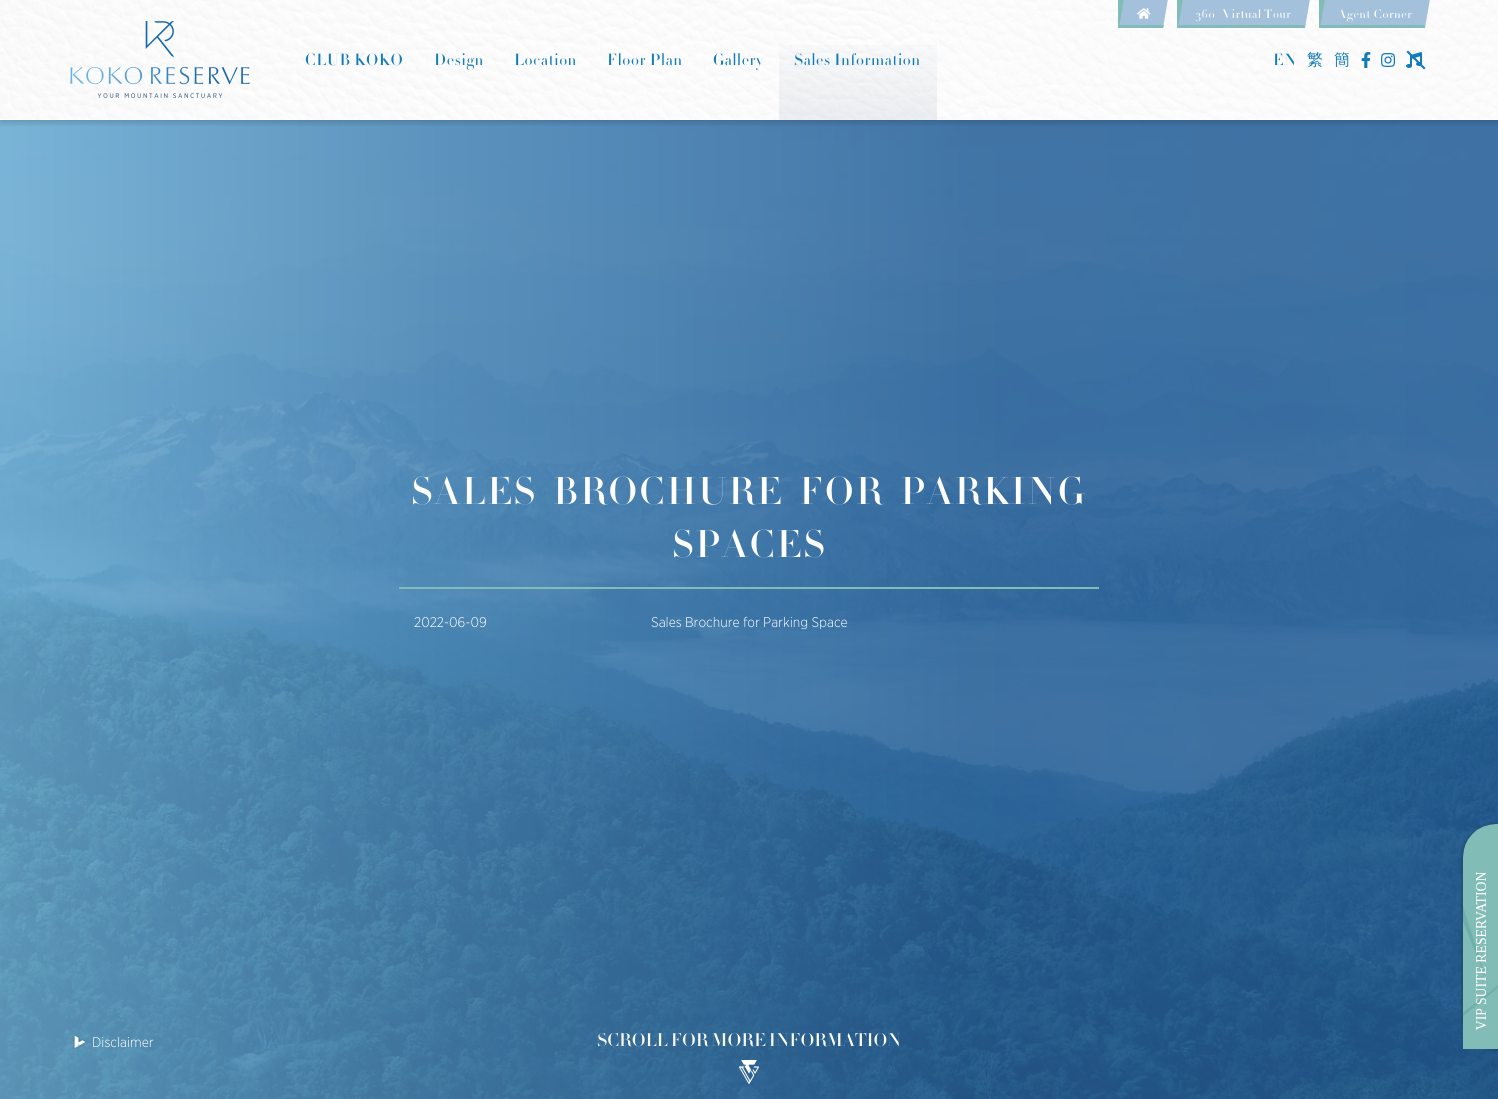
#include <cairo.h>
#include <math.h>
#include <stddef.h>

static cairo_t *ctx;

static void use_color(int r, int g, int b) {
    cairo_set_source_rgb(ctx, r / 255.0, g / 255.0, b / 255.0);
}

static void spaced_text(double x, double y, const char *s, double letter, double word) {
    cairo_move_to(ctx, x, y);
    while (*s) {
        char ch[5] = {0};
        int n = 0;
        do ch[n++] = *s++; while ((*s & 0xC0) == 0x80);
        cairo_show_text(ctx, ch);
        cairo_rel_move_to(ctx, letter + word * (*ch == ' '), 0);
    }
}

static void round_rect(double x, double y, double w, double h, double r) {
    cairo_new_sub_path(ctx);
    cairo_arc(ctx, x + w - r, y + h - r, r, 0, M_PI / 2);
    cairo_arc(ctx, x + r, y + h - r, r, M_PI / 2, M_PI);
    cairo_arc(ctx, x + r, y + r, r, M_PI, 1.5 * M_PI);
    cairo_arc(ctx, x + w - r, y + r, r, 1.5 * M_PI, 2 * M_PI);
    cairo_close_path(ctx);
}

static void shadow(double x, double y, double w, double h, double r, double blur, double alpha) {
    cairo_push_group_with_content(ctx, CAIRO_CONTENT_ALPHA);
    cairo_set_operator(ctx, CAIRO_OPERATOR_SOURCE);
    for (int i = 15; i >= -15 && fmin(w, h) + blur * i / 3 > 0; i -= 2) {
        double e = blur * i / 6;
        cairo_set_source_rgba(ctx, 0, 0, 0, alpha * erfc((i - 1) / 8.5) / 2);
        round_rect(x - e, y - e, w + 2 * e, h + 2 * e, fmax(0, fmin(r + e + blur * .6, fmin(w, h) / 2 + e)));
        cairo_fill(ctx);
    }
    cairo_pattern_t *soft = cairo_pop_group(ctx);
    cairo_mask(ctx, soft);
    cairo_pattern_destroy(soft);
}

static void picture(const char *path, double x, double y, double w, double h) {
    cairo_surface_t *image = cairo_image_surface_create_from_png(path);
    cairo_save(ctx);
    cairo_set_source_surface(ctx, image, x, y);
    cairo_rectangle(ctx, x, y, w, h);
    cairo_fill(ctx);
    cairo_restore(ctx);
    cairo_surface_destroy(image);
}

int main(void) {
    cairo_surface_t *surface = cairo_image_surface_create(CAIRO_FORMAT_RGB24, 1498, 1099);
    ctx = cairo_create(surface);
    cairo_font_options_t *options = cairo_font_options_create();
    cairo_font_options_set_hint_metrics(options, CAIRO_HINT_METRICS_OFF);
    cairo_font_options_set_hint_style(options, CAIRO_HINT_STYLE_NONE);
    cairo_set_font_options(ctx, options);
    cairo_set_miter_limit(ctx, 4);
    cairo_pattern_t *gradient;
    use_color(255, 255, 255);
    cairo_paint(ctx);
    picture("img7.png", 0, 120, 1498, 979);
    cairo_save(ctx);
    cairo_rectangle(ctx, 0, 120, 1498, 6);
    cairo_clip(ctx);
    use_color(0, 0, 0);
    shadow(0, 3, 1498, 120, 0, 3, 0.16);
    cairo_restore(ctx);
    picture("img1.png", 0, 0, 1498, 120);
    use_color(129, 188, 182);
    cairo_rectangle(ctx, 1118, 0, 6, 28);
    cairo_fill(ctx);
    use_color(163, 193, 219);
    cairo_new_path(ctx);
    cairo_move_to(ctx, 1125, -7);
    cairo_line_to(ctx, 1169, -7);
    cairo_line_to(ctx, 1163, 28);
    cairo_line_to(ctx, 1119, 28);
    cairo_close_path(ctx);
    cairo_fill(ctx);
    use_color(129, 188, 182);
    cairo_new_path(ctx);
    cairo_move_to(ctx, 1119, 25);
    cairo_line_to(ctx, 1164, 25);
    cairo_line_to(ctx, 1163, 28);
    cairo_line_to(ctx, 1119, 28);
    cairo_close_path(ctx);
    cairo_fill(ctx);
    picture("img2.png", 1137, 8, 14, 11);
    cairo_rectangle(ctx, 1177, 0, 6, 28);
    cairo_fill(ctx);
    use_color(163, 193, 219);
    cairo_new_path(ctx);
    cairo_move_to(ctx, 1184, -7);
    cairo_line_to(ctx, 1311, -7);
    cairo_line_to(ctx, 1305, 28);
    cairo_line_to(ctx, 1178, 28);
    cairo_close_path(ctx);
    cairo_fill(ctx);
    use_color(129, 188, 182);
    cairo_new_path(ctx);
    cairo_move_to(ctx, 1179, 25);
    cairo_line_to(ctx, 1305, 25);
    cairo_line_to(ctx, 1305, 28);
    cairo_line_to(ctx, 1178, 28);
    cairo_close_path(ctx);
    cairo_fill(ctx);
    cairo_select_font_face(ctx, "Didot Medium", CAIRO_FONT_SLANT_NORMAL, CAIRO_FONT_WEIGHT_NORMAL);
    cairo_set_font_size(ctx, 12);
    use_color(255, 255, 255);
    spaced_text(1196, 18, "360° Virtual Tour", 0.75, 0);
    use_color(129, 188, 182);
    cairo_rectangle(ctx, 1319, 0, 6, 28);
    cairo_fill(ctx);
    use_color(163, 193, 219);
    cairo_new_path(ctx);
    cairo_move_to(ctx, 1326, -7);
    cairo_line_to(ctx, 1431, -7);
    cairo_line_to(ctx, 1425, 28);
    cairo_line_to(ctx, 1320, 28);
    cairo_close_path(ctx);
    cairo_fill(ctx);
    use_color(129, 188, 182);
    cairo_rectangle(ctx, 1320, 25, 105, 3);
    cairo_fill(ctx);
    use_color(255, 255, 255);
    spaced_text(1338, 18, "Agent Corner", 0.75, 0);
    picture("img3.png", 70, 21, 180, 77);
    cairo_set_font_size(ctx, 16);
    use_color(18, 123, 185);
    spaced_text(305, 65, "CLUB KOKO", 0.75, 0);
    spaced_text(434, 65, "Design", 0.75, 0);
    spaced_text(514, 65, "Location", 0.75, 0);
    spaced_text(607, 65, "Floor Plan", 0.75, 0);
    spaced_text(713, 65, "Gallery", 0.75, 0);
    gradient = cairo_pattern_create_linear(858, 0, 858, 120);
    cairo_pattern_add_color_stop_rgba(gradient, 0.2, 0.314, 0.416, 0.525, 0);
    cairo_pattern_add_color_stop_rgba(gradient, 1, 0.314, 0.416, 0.525, 0.1);
    cairo_set_source(ctx, gradient);
    cairo_pattern_destroy(gradient);
    cairo_rectangle(ctx, 779, 45, 158, 75);
    cairo_fill(ctx);
    use_color(18, 123, 185);
    spaced_text(794, 65, "Sales Information", 0.75, 0);
    spaced_text(1273, 65, "EN", 0.75, 0);
    cairo_select_font_face(ctx, "WenQuanYi Zen Hei Medium", CAIRO_FONT_SLANT_NORMAL, CAIRO_FONT_WEIGHT_NORMAL);
    spaced_text(1307, 65, "繁", 0.75, 0);
    spaced_text(1334, 65, "簡", 0.75, 0);
    picture("img4.png", 1361, 52, 10, 16);
    picture("img5.png", 1381, 53, 15, 14);
    picture("img6.png", 1406, 52, 16, 16);
    cairo_new_path(ctx);
    cairo_move_to(ctx, 1406.5, 52);
    cairo_line_to(ctx, 1408, 50.5);
    cairo_line_to(ctx, 1425.5, 68);
    cairo_line_to(ctx, 1424, 69.5);
    cairo_close_path(ctx);
    cairo_fill(ctx);
    cairo_select_font_face(ctx, "Didot Medium", CAIRO_FONT_SLANT_NORMAL, CAIRO_FONT_WEIGHT_NORMAL);
    cairo_set_font_size(ctx, 38);
    use_color(255, 255, 255);
    spaced_text(411, 504, "SALES BROCHURE FOR PARKING", 1.9, 7.5);
    spaced_text(672, 557, "SPACES", 1.9, 0);
    use_color(129, 188, 182);
    cairo_rectangle(ctx, 399, 587, 700, 2);
    cairo_fill(ctx);
    cairo_select_font_face(ctx, "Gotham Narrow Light", CAIRO_FONT_SLANT_NORMAL, CAIRO_FONT_WEIGHT_NORMAL);
    cairo_set_font_size(ctx, 14);
    use_color(255, 255, 255);
    cairo_move_to(ctx, 414, 627);
    cairo_show_text(ctx, "2022-06-09");
    cairo_move_to(ctx, 651, 627);
    cairo_show_text(ctx, "Sales Brochure for Parking Space");
    picture("img8.png", 73, 1035, 13, 14);
    cairo_move_to(ctx, 92, 1047);
    cairo_show_text(ctx, "Disclaimer");
    cairo_select_font_face(ctx, "Didot Medium", CAIRO_FONT_SLANT_NORMAL, CAIRO_FONT_WEIGHT_NORMAL);
    cairo_set_font_size(ctx, 18);
    cairo_move_to(ctx, 597, 1046);
    cairo_show_text(ctx, "SCROLL FOR MORE INFORMATION");
    picture("img9.png", 739, 1060, 20, 24);
    use_color(0, 0, 0);
    shadow(1463, 824, 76, 225, 33, 2.5, 0.3);
    picture("img10.png", 1463, 824, 35, 225);
    cairo_surface_write_to_png(surface, "result.png");
    cairo_font_options_destroy(options);
    cairo_destroy(ctx);
    cairo_surface_destroy(surface);
    return 0;
}
